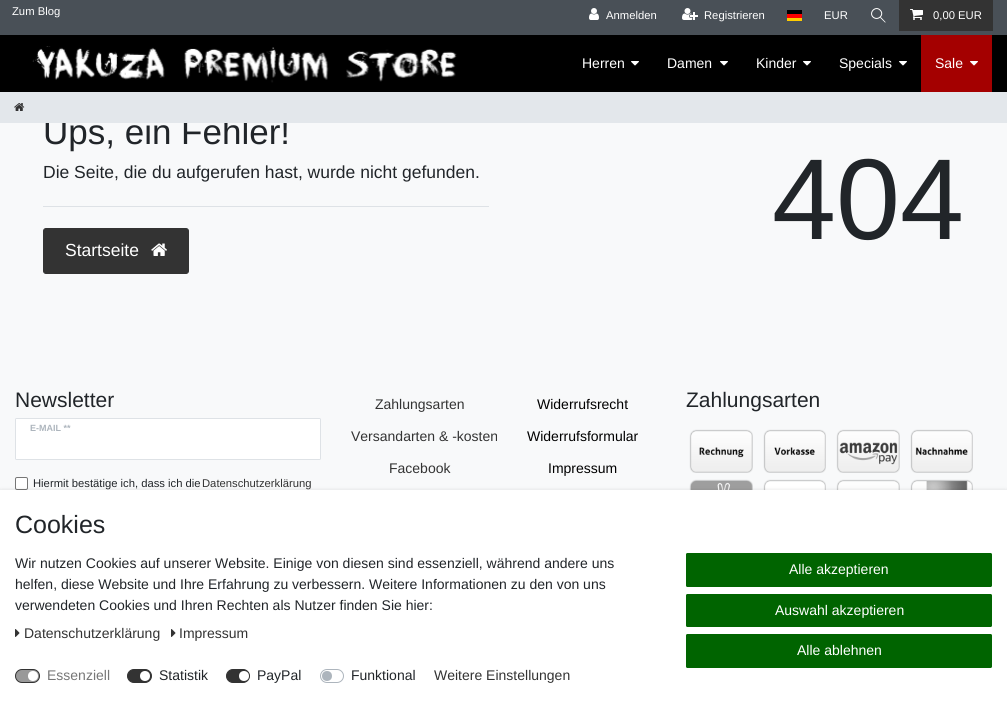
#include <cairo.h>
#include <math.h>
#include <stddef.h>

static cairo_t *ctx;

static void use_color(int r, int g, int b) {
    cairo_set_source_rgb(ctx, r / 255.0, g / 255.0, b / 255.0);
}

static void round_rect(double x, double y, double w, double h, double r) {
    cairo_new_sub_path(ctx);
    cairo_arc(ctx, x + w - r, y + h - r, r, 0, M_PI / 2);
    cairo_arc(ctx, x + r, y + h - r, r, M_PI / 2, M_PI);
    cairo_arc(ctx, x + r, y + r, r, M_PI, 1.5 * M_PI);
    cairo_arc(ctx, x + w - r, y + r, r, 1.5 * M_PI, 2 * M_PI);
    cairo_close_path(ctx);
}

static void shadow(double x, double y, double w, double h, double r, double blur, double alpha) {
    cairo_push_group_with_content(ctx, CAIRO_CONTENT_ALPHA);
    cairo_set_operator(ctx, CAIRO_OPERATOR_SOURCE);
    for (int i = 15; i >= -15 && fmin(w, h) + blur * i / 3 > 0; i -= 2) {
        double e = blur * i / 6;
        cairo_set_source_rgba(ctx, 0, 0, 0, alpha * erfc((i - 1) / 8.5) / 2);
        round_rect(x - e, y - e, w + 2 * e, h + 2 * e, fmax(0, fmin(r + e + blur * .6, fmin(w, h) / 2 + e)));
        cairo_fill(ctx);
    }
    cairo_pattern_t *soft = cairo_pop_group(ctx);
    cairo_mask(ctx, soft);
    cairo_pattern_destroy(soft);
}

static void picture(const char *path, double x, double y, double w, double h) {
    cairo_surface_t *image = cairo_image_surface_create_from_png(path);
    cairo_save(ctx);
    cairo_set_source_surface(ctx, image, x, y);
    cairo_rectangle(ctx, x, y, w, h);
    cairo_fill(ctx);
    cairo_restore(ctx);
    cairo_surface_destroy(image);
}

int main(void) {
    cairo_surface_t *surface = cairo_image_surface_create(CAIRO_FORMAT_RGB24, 1007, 707);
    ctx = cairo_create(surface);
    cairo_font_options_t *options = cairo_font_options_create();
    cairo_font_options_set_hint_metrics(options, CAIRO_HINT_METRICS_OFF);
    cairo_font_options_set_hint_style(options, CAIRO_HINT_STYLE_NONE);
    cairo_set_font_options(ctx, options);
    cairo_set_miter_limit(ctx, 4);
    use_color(248, 249, 250);
    cairo_paint(ctx);
    use_color(73, 80, 87);
    cairo_rectangle(ctx, 0, 0, 1007, 35);
    cairo_fill(ctx);
    cairo_select_font_face(ctx, "Liberation Sans", CAIRO_FONT_SLANT_NORMAL, CAIRO_FONT_WEIGHT_NORMAL);
    cairo_set_font_size(ctx, 11.25);
    use_color(255, 255, 255);
    cairo_move_to(ctx, 12, 15);
    cairo_show_text(ctx, "Zum Blog");
    picture("img1.png", 589, 8, 10, 12);
    cairo_move_to(ctx, 606, 19);
    cairo_show_text(ctx, "Anmelden");
    picture("img2.png", 682, 8, 16, 12);
    cairo_move_to(ctx, 704, 19);
    cairo_show_text(ctx, "Registrieren");
    use_color(255, 204, 0);
    cairo_rectangle(ctx, 787, 18, 15, 3);
    cairo_fill(ctx);
    use_color(0, 0, 0);
    cairo_rectangle(ctx, 787, 10, 15, 4);
    cairo_fill(ctx);
    use_color(255, 0, 0);
    cairo_rectangle(ctx, 787, 14, 15, 4);
    cairo_fill(ctx);
    use_color(255, 255, 255);
    cairo_move_to(ctx, 824, 19);
    cairo_show_text(ctx, "EUR");
    cairo_new_path(ctx);
    cairo_move_to(ctx, 885, 22.5);
    cairo_curve_to(ctx, 883.5, 21, 874.5, 12.5, 875, 12);
    cairo_line_to(ctx, 875.5, 11.5);
    cairo_line_to(ctx, 885.5, 22);
    cairo_curve_to(ctx, 886, 22.5, 885, 22.5, 885, 22.5);
    cairo_close_path(ctx);
    cairo_fill(ctx);
    use_color(73, 80, 87);
    cairo_new_path(ctx);
    cairo_move_to(ctx, 873, 17.5);
    cairo_curve_to(ctx, 867.5, 12.5, 875.5, 4.5, 880.5, 9.5);
    cairo_curve_to(ctx, 885.5, 14.5, 878, 22.5, 873, 17.5);
    cairo_close_path(ctx);
    cairo_fill(ctx);
    cairo_new_path(ctx);
    cairo_move_to(ctx, 873, 17);
    cairo_curve_to(ctx, 868.5, 12.5, 875.5, 5.5, 880, 10);
    cairo_curve_to(ctx, 885, 14.5, 878, 21.5, 873, 17);
    cairo_close_path(ctx);
    use_color(255, 255, 255);
    cairo_set_line_width(ctx, 1);
    cairo_stroke(ctx);
    use_color(51, 51, 51);
    cairo_rectangle(ctx, 899, 0, 94, 31);
    cairo_fill(ctx);
    picture("img3.png", 910, 9, 13, 11);
    use_color(255, 255, 255);
    cairo_move_to(ctx, 933, 19);
    cairo_show_text(ctx, "0,00 EUR");
    use_color(0, 0, 0);
    cairo_rectangle(ctx, 0, 35, 1007, 57);
    cairo_fill(ctx);
    picture("img4.png", 32, 46, 425, 37);
    cairo_set_font_size(ctx, 14);
    use_color(255, 255, 255);
    cairo_move_to(ctx, 582, 68);
    cairo_show_text(ctx, "Herren");
    picture("img5.png", 631, 61, 8, 5);
    cairo_move_to(ctx, 667, 68);
    cairo_show_text(ctx, "Damen");
    picture("img5.png", 720, 61, 8, 5);
    cairo_move_to(ctx, 756, 68);
    cairo_show_text(ctx, "Kinder");
    picture("img5.png", 803, 61, 8, 5);
    cairo_move_to(ctx, 839, 68);
    cairo_show_text(ctx, "Specials");
    picture("img5.png", 899, 61, 8, 5);
    use_color(164, 0, 0);
    cairo_rectangle(ctx, 921, 35, 71, 57);
    cairo_fill(ctx);
    use_color(255, 255, 255);
    cairo_move_to(ctx, 935, 68);
    cairo_show_text(ctx, "Sale");
    picture("img6.png", 970, 61, 8, 5);
    cairo_set_font_size(ctx, 35);
    use_color(33, 37, 41);
    cairo_move_to(ctx, 43, 144);
    cairo_show_text(ctx, "Ups, ein Fehler!");
    use_color(227, 231, 235);
    cairo_rectangle(ctx, 0, 92, 1007, 31);
    cairo_fill(ctx);
    picture("img7.png", 14, 103, 11, 8);
    cairo_set_font_size(ctx, 17.5);
    use_color(33, 37, 41);
    cairo_move_to(ctx, 43, 178);
    cairo_show_text(ctx, "Die Seite, die du aufgerufen hast, wurde nicht gefunden.");
    use_color(222, 226, 230);
    cairo_rectangle(ctx, 43, 206, 446, 1);
    cairo_fill(ctx);
    use_color(51, 51, 51);
    round_rect(43.5, 228.5, 145, 45, 2.5);
    cairo_fill_preserve(ctx);
    cairo_stroke(ctx);
    use_color(255, 255, 255);
    cairo_move_to(ctx, 65, 256);
    cairo_show_text(ctx, "Startseite");
    picture("img8.png", 151, 243, 16, 13);
    cairo_set_font_size(ctx, 115);
    use_color(33, 37, 41);
    cairo_move_to(ctx, 772, 239);
    cairo_show_text(ctx, "404");
    cairo_set_font_size(ctx, 21);
    cairo_move_to(ctx, 15, 407);
    cairo_show_text(ctx, "Newsletter");
    round_rect(15.5, 418.5, 305, 41, 1);
    use_color(222, 226, 230);
    cairo_stroke(ctx);
    use_color(255, 255, 255);
    round_rect(16, 419, 304, 40, 0.5);
    cairo_fill(ctx);
    cairo_select_font_face(ctx, "Liberation Sans", CAIRO_FONT_SLANT_NORMAL, CAIRO_FONT_WEIGHT_BOLD);
    cairo_set_font_size(ctx, 9);
    use_color(173, 181, 189);
    cairo_move_to(ctx, 30, 431);
    cairo_show_text(ctx, "E-MAIL **");
    use_color(255, 255, 255);
    round_rect(15.5, 477.5, 12, 12, 1.5);
    cairo_fill_preserve(ctx);
    use_color(118, 118, 118);
    cairo_stroke(ctx);
    cairo_select_font_face(ctx, "Liberation Sans", CAIRO_FONT_SLANT_NORMAL, CAIRO_FONT_WEIGHT_NORMAL);
    cairo_set_font_size(ctx, 11.25);
    use_color(33, 37, 41);
    cairo_move_to(ctx, 33, 487);
    cairo_show_text(ctx, "Hiermit bestätige ich, dass ich die");
    use_color(51, 51, 51);
    cairo_move_to(ctx, 202, 487);
    cairo_show_text(ctx, "Datenschutzerklärung");
    cairo_set_font_size(ctx, 14);
    cairo_move_to(ctx, 375, 409);
    cairo_show_text(ctx, "Zahlungsarten");
    cairo_move_to(ctx, 351, 441);
    cairo_show_text(ctx, "Versandarten & -kosten");
    cairo_move_to(ctx, 389, 473);
    cairo_show_text(ctx, "Facebook");
    use_color(0, 0, 0);
    cairo_move_to(ctx, 537, 409);
    cairo_show_text(ctx, "Widerrufsrecht");
    cairo_move_to(ctx, 527, 441);
    cairo_show_text(ctx, "Widerrufsformular");
    cairo_move_to(ctx, 548, 473);
    cairo_show_text(ctx, "Impressum");
    cairo_set_font_size(ctx, 21);
    use_color(33, 37, 41);
    cairo_move_to(ctx, 686, 407);
    cairo_show_text(ctx, "Zahlungsarten");
    picture("img9.png", 689, 429, 64, 44);
    picture("img10.png", 763, 429, 63, 44);
    picture("img11.png", 836, 429, 64, 44);
    picture("img12.png", 910, 429, 63, 44);
    picture("img13.png", 689, 479, 64, 11);
    picture("img14.png", 763, 479, 63, 11);
    picture("img15.png", 836, 479, 64, 11);
    picture("img16.png", 910, 479, 63, 11);
    use_color(0, 0, 0);
    shadow(0, 491, 1007, 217, 0, 2.5, 0.15);
    use_color(255, 255, 255);
    cairo_rectangle(ctx, 0, 490, 1007, 217);
    cairo_fill(ctx);
    cairo_set_font_size(ctx, 25);
    use_color(33, 37, 41);
    cairo_move_to(ctx, 15, 533);
    cairo_show_text(ctx, "Cookies");
    cairo_set_font_size(ctx, 14);
    cairo_move_to(ctx, 15, 568);
    cairo_show_text(ctx, "Wir nutzen Cookies auf unserer Website. Einige von diesen sind essenziell, während andere uns");
    cairo_move_to(ctx, 15, 589);
    cairo_show_text(ctx, "helfen, diese Website und Ihre Erfahrung zu verbessern. Weitere Informationen zu den von uns");
    cairo_move_to(ctx, 15, 610);
    cairo_show_text(ctx, "verwendeten Cookies und Ihren Rechten als Nutzer finden Sie hier:");
    picture("img17.png", 15, 629, 5, 8);
    use_color(51, 51, 51);
    cairo_move_to(ctx, 24, 638);
    cairo_show_text(ctx, "Datenschutzerklärung");
    picture("img17.png", 171, 629, 5, 8);
    cairo_move_to(ctx, 179, 638);
    cairo_show_text(ctx, "Impressum");
    use_color(153, 153, 153);
    round_rect(15.5, 669.5, 24, 13, 6.5);
    cairo_fill_preserve(ctx);
    use_color(51, 51, 51);
    cairo_stroke(ctx);
    use_color(118, 118, 118);
    cairo_move_to(ctx, 47, 680);
    cairo_show_text(ctx, "Essenziell");
    use_color(255, 255, 255);
    cairo_new_path(ctx);
    cairo_arc(ctx, 33, 676, 5, 0, 2 * M_PI);
    cairo_fill(ctx);
    use_color(51, 51, 51);
    round_rect(127.5, 669.5, 24, 13, 6.5);
    cairo_fill_preserve(ctx);
    cairo_stroke(ctx);
    use_color(33, 37, 41);
    cairo_move_to(ctx, 159, 680);
    cairo_show_text(ctx, "Statistik");
    use_color(255, 255, 255);
    cairo_new_path(ctx);
    cairo_arc(ctx, 145, 676, 5, 0, 2 * M_PI);
    cairo_fill(ctx);
    use_color(51, 51, 51);
    round_rect(226.5, 669.5, 23, 13, 6.5);
    cairo_fill_preserve(ctx);
    cairo_stroke(ctx);
    use_color(33, 37, 41);
    cairo_move_to(ctx, 257, 680);
    cairo_show_text(ctx, "PayPal");
    use_color(255, 255, 255);
    cairo_new_path(ctx);
    cairo_arc(ctx, 244, 676, 5, 0, 2 * M_PI);
    cairo_fill(ctx);
    round_rect(320.5, 669.5, 23, 13, 6.5);
    use_color(173, 181, 189);
    cairo_stroke(ctx);
    use_color(33, 37, 41);
    cairo_move_to(ctx, 351, 680);
    cairo_show_text(ctx, "Funktional");
    use_color(173, 181, 189);
    cairo_new_path(ctx);
    cairo_arc(ctx, 327, 676, 5, 0, 2 * M_PI);
    cairo_fill(ctx);
    use_color(51, 51, 51);
    cairo_move_to(ctx, 434, 680);
    cairo_show_text(ctx, "Weitere Einstellungen");
    use_color(0, 100, 0);
    round_rect(686.5, 553.5, 305, 33, 1);
    cairo_fill_preserve(ctx);
    cairo_stroke(ctx);
    use_color(255, 255, 255);
    cairo_move_to(ctx, 789, 574);
    cairo_show_text(ctx, "Alle akzeptieren");
    use_color(0, 100, 0);
    round_rect(686.5, 594.5, 305, 32, 1);
    cairo_fill_preserve(ctx);
    cairo_stroke(ctx);
    use_color(255, 255, 255);
    cairo_move_to(ctx, 775, 615);
    cairo_show_text(ctx, "Auswahl akzeptieren");
    use_color(0, 100, 0);
    round_rect(686.5, 634.5, 305, 33, 1);
    cairo_fill_preserve(ctx);
    cairo_stroke(ctx);
    use_color(255, 255, 255);
    cairo_move_to(ctx, 797, 655);
    cairo_show_text(ctx, "Alle ablehnen");
    cairo_surface_write_to_png(surface, "result.png");
    cairo_font_options_destroy(options);
    cairo_destroy(ctx);
    cairo_surface_destroy(surface);
    return 0;
}
